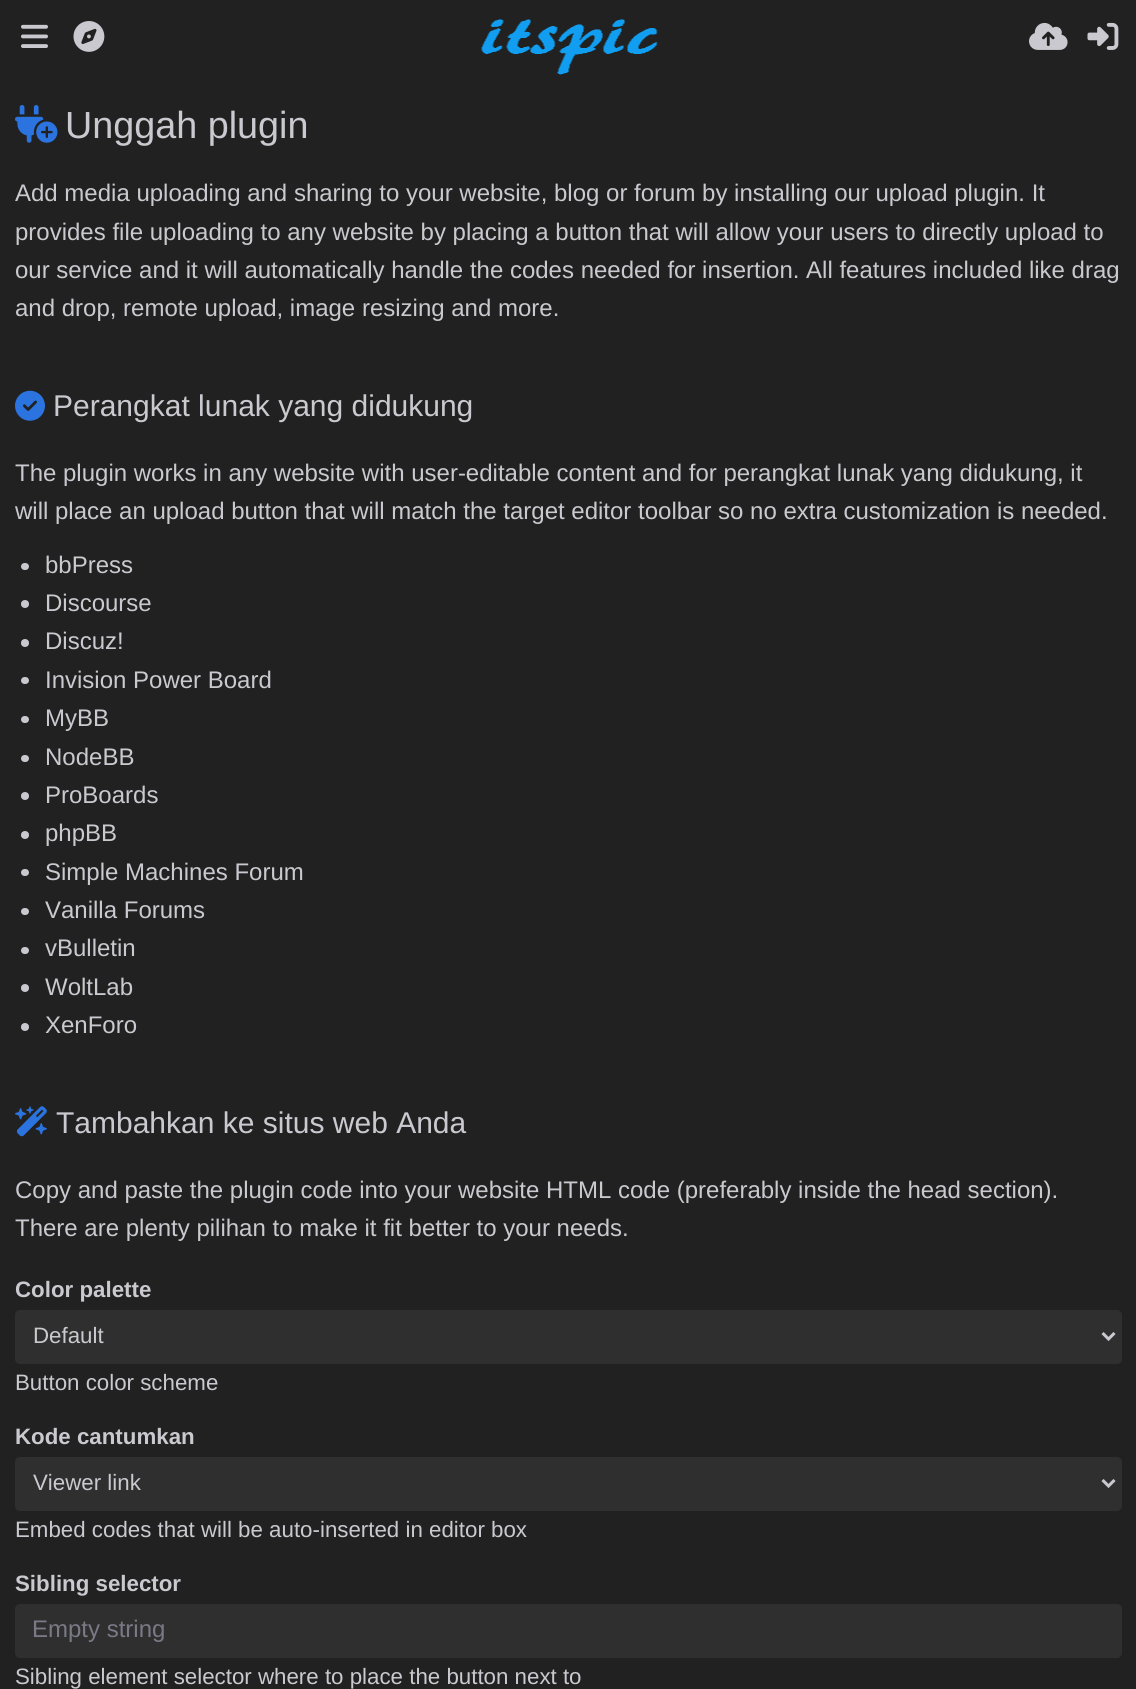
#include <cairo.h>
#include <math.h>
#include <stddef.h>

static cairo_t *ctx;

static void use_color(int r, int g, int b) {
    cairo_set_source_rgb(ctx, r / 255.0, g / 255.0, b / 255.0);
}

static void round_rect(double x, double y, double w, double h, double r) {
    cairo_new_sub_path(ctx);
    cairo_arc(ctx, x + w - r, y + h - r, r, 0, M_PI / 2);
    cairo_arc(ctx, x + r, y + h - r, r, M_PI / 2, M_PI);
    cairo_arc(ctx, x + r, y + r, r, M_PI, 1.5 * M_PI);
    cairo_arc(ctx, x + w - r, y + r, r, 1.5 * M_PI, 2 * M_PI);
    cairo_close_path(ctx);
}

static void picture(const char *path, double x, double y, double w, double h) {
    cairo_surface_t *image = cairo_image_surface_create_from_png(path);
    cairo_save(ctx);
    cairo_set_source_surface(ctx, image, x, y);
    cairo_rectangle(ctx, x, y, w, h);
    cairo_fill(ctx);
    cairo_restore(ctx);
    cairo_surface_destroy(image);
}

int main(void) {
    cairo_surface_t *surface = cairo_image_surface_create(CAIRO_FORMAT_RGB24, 1136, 1689);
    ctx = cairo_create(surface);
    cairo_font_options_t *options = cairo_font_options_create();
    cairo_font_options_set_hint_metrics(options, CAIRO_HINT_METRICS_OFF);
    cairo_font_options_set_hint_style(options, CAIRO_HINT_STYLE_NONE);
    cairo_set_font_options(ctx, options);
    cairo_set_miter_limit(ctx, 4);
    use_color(33, 33, 33);
    cairo_paint(ctx);
    picture("img1.png", 21, 24, 27, 24);
    picture("img2.png", 73, 21, 32, 31);
    picture("img3.png", 481, 19, 177, 56);
    picture("img4.png", 1029, 22, 39, 28);
    picture("img5.png", 1087, 22, 32, 28);
    picture("img6.png", 15, 105, 43, 38);
    cairo_select_font_face(ctx, "Liberation Sans", CAIRO_FONT_SLANT_NORMAL, CAIRO_FONT_WEIGHT_NORMAL);
    cairo_set_font_size(ctx, 37.75);
    use_color(202, 201, 207);
    cairo_move_to(ctx, 65, 138);
    cairo_show_text(ctx, "Unggah plugin");
    cairo_set_font_size(ctx, 24);
    cairo_move_to(ctx, 15, 201);
    cairo_show_text(ctx, "Add media uploading and sharing to your website, blog or forum by installing our upload plugin. It");
    cairo_move_to(ctx, 15, 240);
    cairo_show_text(ctx, "provides file uploading to any website by placing a button that will allow your users to directly upload to");
    cairo_move_to(ctx, 15, 278);
    cairo_show_text(ctx, "our service and it will automatically handle the codes needed for insertion. All features included like drag");
    cairo_move_to(ctx, 15, 316);
    cairo_show_text(ctx, "and drop, remote upload, image resizing and more.");
    picture("img7.png", 15, 390, 30, 31);
    cairo_set_font_size(ctx, 30);
    cairo_move_to(ctx, 53, 416);
    cairo_show_text(ctx, "Perangkat lunak yang didukung");
    cairo_set_font_size(ctx, 24);
    cairo_move_to(ctx, 15, 481);
    cairo_show_text(ctx, "The plugin works in any website with user-editable content and for perangkat lunak yang didukung, it");
    cairo_move_to(ctx, 15, 519);
    cairo_show_text(ctx, "will place an upload button that will match the target editor toolbar so no extra customization is needed.");
    round_rect(21, 563, 8, 7, 3.5);
    cairo_fill(ctx);
    cairo_move_to(ctx, 45, 573);
    cairo_show_text(ctx, "bbPress");
    cairo_new_path(ctx);
    cairo_arc(ctx, 25, 604, 4, 0, 2 * M_PI);
    cairo_fill(ctx);
    cairo_move_to(ctx, 45, 611);
    cairo_show_text(ctx, "Discourse");
    cairo_new_path(ctx);
    cairo_arc(ctx, 25, 643, 4, 0, 2 * M_PI);
    cairo_fill(ctx);
    cairo_move_to(ctx, 45, 649);
    cairo_show_text(ctx, "Discuz!");
    round_rect(21, 677, 8, 7, 3.5);
    cairo_fill(ctx);
    cairo_move_to(ctx, 45, 688);
    cairo_show_text(ctx, "Invision Power Board");
    round_rect(21, 716, 8, 7, 3.5);
    cairo_fill(ctx);
    cairo_move_to(ctx, 45, 726);
    cairo_show_text(ctx, "MyBB");
    round_rect(21, 755, 8, 7, 3.5);
    cairo_fill(ctx);
    cairo_move_to(ctx, 45, 765);
    cairo_show_text(ctx, "NodeBB");
    cairo_new_path(ctx);
    cairo_arc(ctx, 25, 796, 4, 0, 2 * M_PI);
    cairo_fill(ctx);
    cairo_move_to(ctx, 45, 803);
    cairo_show_text(ctx, "ProBoards");
    cairo_new_path(ctx);
    cairo_arc(ctx, 25, 835, 4, 0, 2 * M_PI);
    cairo_fill(ctx);
    cairo_move_to(ctx, 45, 841);
    cairo_show_text(ctx, "phpBB");
    round_rect(21, 869, 8, 7, 3.5);
    cairo_fill(ctx);
    cairo_move_to(ctx, 45, 880);
    cairo_show_text(ctx, "Simple Machines Forum");
    round_rect(21, 908, 8, 7, 3.5);
    cairo_fill(ctx);
    cairo_move_to(ctx, 45, 918);
    cairo_show_text(ctx, "Vanilla Forums");
    round_rect(21, 947, 8, 7, 3.5);
    cairo_fill(ctx);
    cairo_move_to(ctx, 45, 956);
    cairo_show_text(ctx, "vBulletin");
    cairo_new_path(ctx);
    cairo_arc(ctx, 25, 988, 4, 0, 2 * M_PI);
    cairo_fill(ctx);
    cairo_move_to(ctx, 45, 995);
    cairo_show_text(ctx, "WoltLab");
    cairo_new_path(ctx);
    cairo_arc(ctx, 25, 1027, 4, 0, 2 * M_PI);
    cairo_fill(ctx);
    cairo_move_to(ctx, 45, 1033);
    cairo_show_text(ctx, "XenForo");
    picture("img8.png", 15, 1106, 32, 31);
    cairo_set_font_size(ctx, 30);
    cairo_move_to(ctx, 56, 1133);
    cairo_show_text(ctx, "Tambahkan ke situs web Anda");
    cairo_set_font_size(ctx, 24);
    cairo_move_to(ctx, 15, 1198);
    cairo_show_text(ctx, "Copy and paste the plugin code into your website HTML code (preferably inside the head section).");
    cairo_move_to(ctx, 15, 1236);
    cairo_show_text(ctx, "There are plenty pilihan to make it fit better to your needs.");
    cairo_select_font_face(ctx, "Liberation Sans", CAIRO_FONT_SLANT_NORMAL, CAIRO_FONT_WEIGHT_BOLD);
    cairo_set_font_size(ctx, 22.3);
    cairo_move_to(ctx, 15, 1297);
    cairo_show_text(ctx, "Color palette");
    use_color(47, 47, 47);
    round_rect(15, 1310, 1107, 54, 5);
    cairo_fill(ctx);
    cairo_new_path(ctx);
    cairo_move_to(ctx, 1102.5, 1333);
    cairo_line_to(ctx, 1108.5, 1339);
    cairo_line_to(ctx, 1114.5, 1333);
    use_color(202, 201, 207);
    cairo_set_line_width(ctx, 3);
    cairo_stroke(ctx);
    cairo_select_font_face(ctx, "Liberation Sans", CAIRO_FONT_SLANT_NORMAL, CAIRO_FONT_WEIGHT_NORMAL);
    cairo_move_to(ctx, 33, 1343);
    cairo_show_text(ctx, "Default");
    cairo_move_to(ctx, 15, 1390);
    cairo_show_text(ctx, "Button color scheme");
    cairo_select_font_face(ctx, "Liberation Sans", CAIRO_FONT_SLANT_NORMAL, CAIRO_FONT_WEIGHT_BOLD);
    cairo_move_to(ctx, 15, 1444);
    cairo_show_text(ctx, "Kode cantumkan");
    use_color(47, 47, 47);
    round_rect(15, 1457, 1107, 54, 5);
    cairo_fill(ctx);
    cairo_new_path(ctx);
    cairo_move_to(ctx, 1102.5, 1480);
    cairo_line_to(ctx, 1108.5, 1486);
    cairo_line_to(ctx, 1114.5, 1480);
    use_color(202, 201, 207);
    cairo_stroke(ctx);
    cairo_select_font_face(ctx, "Liberation Sans", CAIRO_FONT_SLANT_NORMAL, CAIRO_FONT_WEIGHT_NORMAL);
    cairo_move_to(ctx, 33, 1490);
    cairo_show_text(ctx, "Viewer link");
    cairo_move_to(ctx, 15, 1537);
    cairo_show_text(ctx, "Embed codes that will be auto-inserted in editor box");
    cairo_select_font_face(ctx, "Liberation Sans", CAIRO_FONT_SLANT_NORMAL, CAIRO_FONT_WEIGHT_BOLD);
    cairo_move_to(ctx, 15, 1591);
    cairo_show_text(ctx, "Sibling selector");
    use_color(47, 47, 47);
    round_rect(15, 1604, 1107, 54, 5);
    cairo_fill(ctx);
    cairo_select_font_face(ctx, "Liberation Sans", CAIRO_FONT_SLANT_NORMAL, CAIRO_FONT_WEIGHT_NORMAL);
    cairo_set_font_size(ctx, 24);
    use_color(122, 121, 134);
    cairo_move_to(ctx, 32, 1637);
    cairo_show_text(ctx, "Empty string");
    cairo_set_font_size(ctx, 22.3);
    use_color(202, 201, 207);
    cairo_move_to(ctx, 15, 1684);
    cairo_show_text(ctx, "Sibling element selector where to place the button next to");
    cairo_surface_write_to_png(surface, "result.png");
    cairo_font_options_destroy(options);
    cairo_destroy(ctx);
    cairo_surface_destroy(surface);
    return 0;
}
